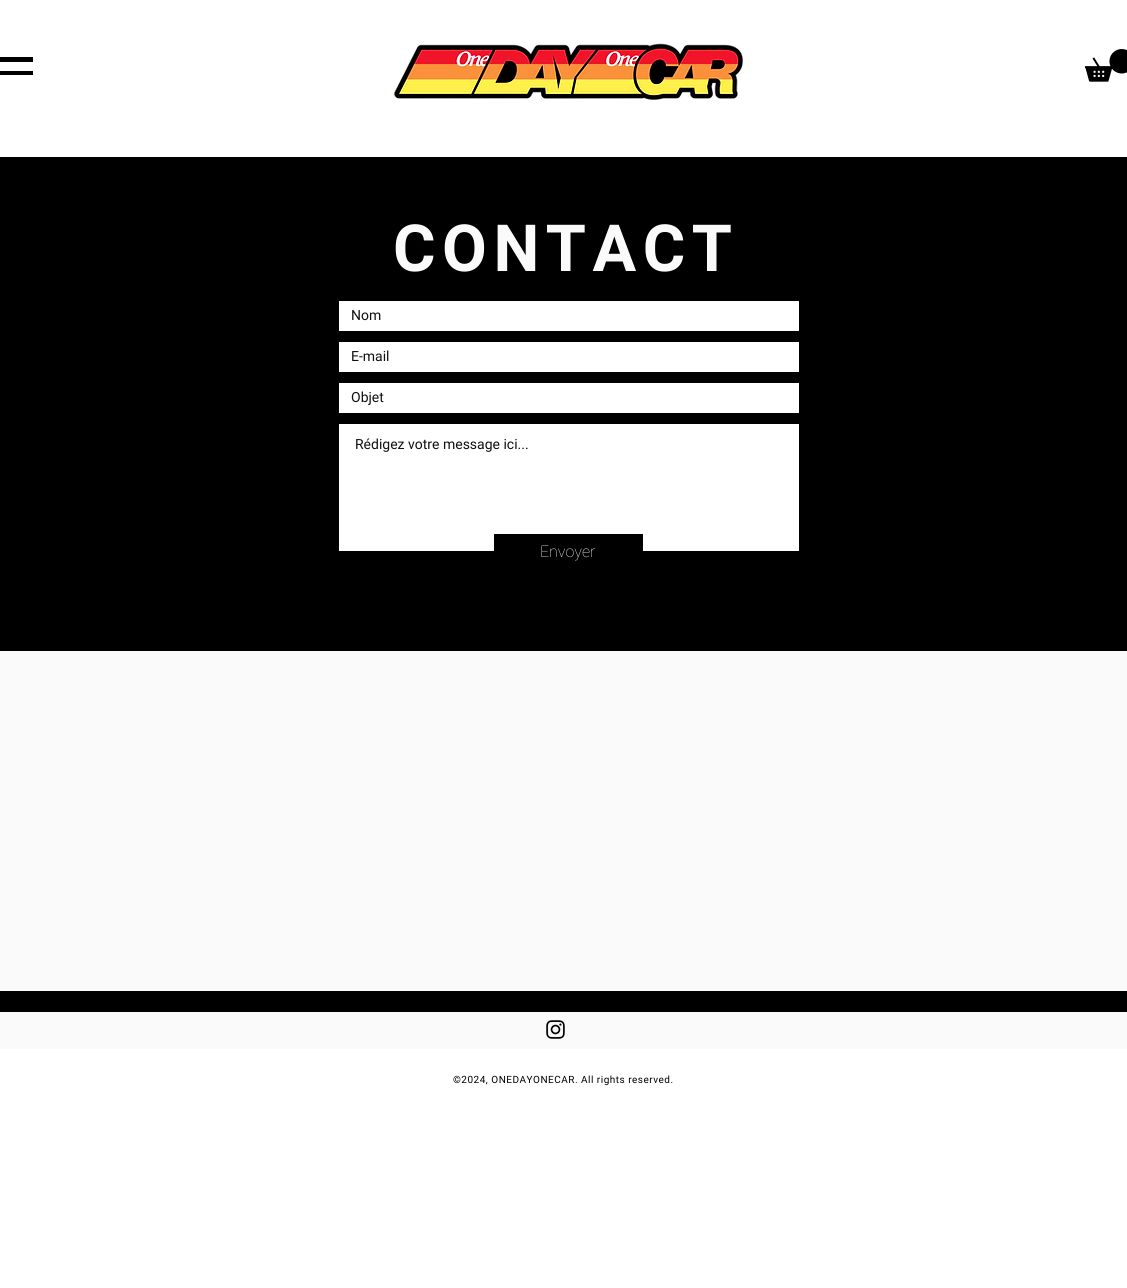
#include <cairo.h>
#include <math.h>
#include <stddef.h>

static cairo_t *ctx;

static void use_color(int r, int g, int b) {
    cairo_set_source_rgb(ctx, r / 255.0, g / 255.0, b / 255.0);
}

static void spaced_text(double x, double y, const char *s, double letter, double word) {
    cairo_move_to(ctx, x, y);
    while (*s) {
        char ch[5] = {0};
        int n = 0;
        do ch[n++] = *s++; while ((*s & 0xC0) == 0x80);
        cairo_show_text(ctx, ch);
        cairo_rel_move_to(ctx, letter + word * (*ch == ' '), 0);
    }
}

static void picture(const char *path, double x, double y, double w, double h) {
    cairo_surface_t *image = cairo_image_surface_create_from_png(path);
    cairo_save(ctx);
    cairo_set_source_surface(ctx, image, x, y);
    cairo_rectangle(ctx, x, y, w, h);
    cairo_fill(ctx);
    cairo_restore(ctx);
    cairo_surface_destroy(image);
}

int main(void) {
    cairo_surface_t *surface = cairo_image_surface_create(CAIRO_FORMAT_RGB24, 1127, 1288);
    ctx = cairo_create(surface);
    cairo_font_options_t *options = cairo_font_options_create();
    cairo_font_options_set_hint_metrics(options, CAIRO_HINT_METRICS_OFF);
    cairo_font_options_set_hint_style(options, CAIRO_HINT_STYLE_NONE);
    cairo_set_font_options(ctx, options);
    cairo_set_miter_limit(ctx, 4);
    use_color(255, 255, 255);
    cairo_paint(ctx);
    use_color(0, 0, 0);
    cairo_rectangle(ctx, 0, 57, 33, 5);
    cairo_fill(ctx);
    cairo_rectangle(ctx, 0, 71, 33, 4);
    cairo_fill(ctx);
    picture("img1.png", 393, 42, 350, 58);
    picture("img2.png", 1085, 49, 42, 33);
    cairo_rectangle(ctx, 0, 157, 1127, 855);
    cairo_fill(ctx);
    cairo_select_font_face(ctx, "Roboto", CAIRO_FONT_SLANT_NORMAL, CAIRO_FONT_WEIGHT_BOLD);
    cairo_set_font_size(ctx, 65);
    use_color(250, 250, 250);
    spaced_text(393, 271, "CONTACT", 6.5, 0);
    use_color(255, 255, 255);
    cairo_rectangle(ctx, 339, 301, 460, 30);
    cairo_fill(ctx);
    cairo_select_font_face(ctx, "Roboto", CAIRO_FONT_SLANT_NORMAL, CAIRO_FONT_WEIGHT_NORMAL);
    cairo_set_font_size(ctx, 14);
    use_color(15, 15, 15);
    cairo_move_to(ctx, 351, 320);
    cairo_show_text(ctx, "Nom");
    use_color(255, 255, 255);
    cairo_rectangle(ctx, 339, 342, 460, 30);
    cairo_fill(ctx);
    use_color(15, 15, 15);
    cairo_move_to(ctx, 351, 361);
    cairo_show_text(ctx, "E-mail");
    use_color(255, 255, 255);
    cairo_rectangle(ctx, 339, 383, 460, 30);
    cairo_fill(ctx);
    use_color(15, 15, 15);
    cairo_move_to(ctx, 351, 402);
    cairo_show_text(ctx, "Objet");
    use_color(255, 255, 255);
    cairo_rectangle(ctx, 339, 424, 460, 127);
    cairo_fill(ctx);
    use_color(15, 15, 15);
    cairo_move_to(ctx, 355, 449);
    cairo_show_text(ctx, "Rédigez votre message ici...");
    use_color(0, 0, 0);
    cairo_rectangle(ctx, 494, 534, 149, 17);
    cairo_fill(ctx);
    cairo_select_font_face(ctx, "Roboto Thin", CAIRO_FONT_SLANT_NORMAL, CAIRO_FONT_WEIGHT_NORMAL);
    cairo_set_font_size(ctx, 16);
    use_color(250, 250, 250);
    cairo_move_to(ctx, 540, 557);
    cairo_show_text(ctx, "Envoyer");
    cairo_rectangle(ctx, 0, 651, 1127, 340);
    cairo_fill(ctx);
    cairo_rectangle(ctx, 0, 1012, 1127, 37);
    cairo_fill(ctx);
    picture("img3.png", 546, 1020, 19, 19);
    cairo_select_font_face(ctx, "Roboto", CAIRO_FONT_SLANT_NORMAL, CAIRO_FONT_WEIGHT_NORMAL);
    cairo_set_font_size(ctx, 10);
    use_color(0, 0, 0);
    spaced_text(453, 1083, "©2024, ONEDAYONECAR. All rights reserved.", 0.5, 0);
    cairo_surface_write_to_png(surface, "result.png");
    cairo_font_options_destroy(options);
    cairo_destroy(ctx);
    cairo_surface_destroy(surface);
    return 0;
}
